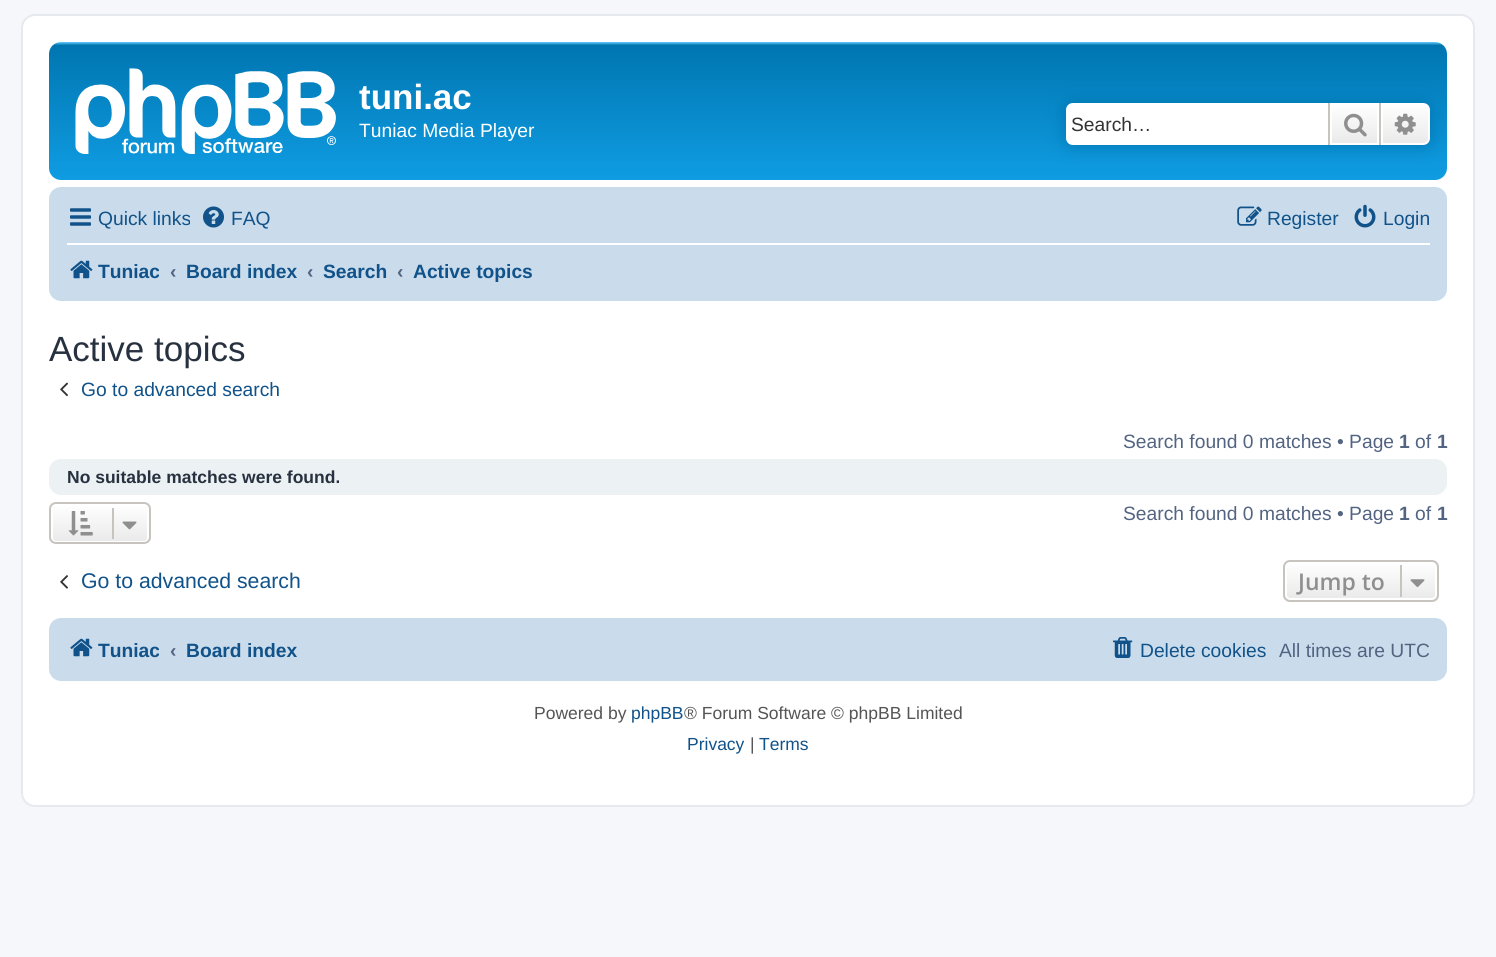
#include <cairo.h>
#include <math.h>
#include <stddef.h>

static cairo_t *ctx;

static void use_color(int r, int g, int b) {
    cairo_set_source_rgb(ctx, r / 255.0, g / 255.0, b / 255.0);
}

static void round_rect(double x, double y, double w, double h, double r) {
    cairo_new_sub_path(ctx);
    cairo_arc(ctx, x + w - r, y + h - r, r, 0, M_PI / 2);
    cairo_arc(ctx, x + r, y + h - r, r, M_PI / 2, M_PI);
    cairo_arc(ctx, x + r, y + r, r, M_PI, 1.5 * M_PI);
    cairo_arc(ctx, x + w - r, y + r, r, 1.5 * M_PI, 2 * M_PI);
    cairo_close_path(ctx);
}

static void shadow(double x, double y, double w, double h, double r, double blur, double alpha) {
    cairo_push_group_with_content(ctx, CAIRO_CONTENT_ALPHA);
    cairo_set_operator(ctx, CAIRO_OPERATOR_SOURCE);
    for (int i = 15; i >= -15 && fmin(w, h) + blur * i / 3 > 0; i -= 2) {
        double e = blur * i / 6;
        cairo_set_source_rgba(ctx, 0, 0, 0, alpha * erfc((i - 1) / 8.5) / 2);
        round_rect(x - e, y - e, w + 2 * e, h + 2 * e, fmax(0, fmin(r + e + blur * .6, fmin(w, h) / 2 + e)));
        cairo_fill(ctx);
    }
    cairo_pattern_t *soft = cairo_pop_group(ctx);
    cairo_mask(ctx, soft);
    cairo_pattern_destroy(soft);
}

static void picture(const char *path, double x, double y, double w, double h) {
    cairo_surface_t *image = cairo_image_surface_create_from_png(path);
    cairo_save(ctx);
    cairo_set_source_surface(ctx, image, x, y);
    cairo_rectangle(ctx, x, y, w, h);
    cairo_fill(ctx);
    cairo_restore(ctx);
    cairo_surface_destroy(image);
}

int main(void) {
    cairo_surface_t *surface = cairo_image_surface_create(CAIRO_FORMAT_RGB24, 1496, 957);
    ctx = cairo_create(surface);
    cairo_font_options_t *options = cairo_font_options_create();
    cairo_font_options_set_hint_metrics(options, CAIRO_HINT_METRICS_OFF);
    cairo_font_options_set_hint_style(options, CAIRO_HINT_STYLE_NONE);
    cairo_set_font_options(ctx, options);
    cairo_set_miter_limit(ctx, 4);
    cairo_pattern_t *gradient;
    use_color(245, 247, 250);
    cairo_paint(ctx);
    use_color(255, 255, 255);
    round_rect(22, 15, 1452, 791, 13);
    cairo_fill_preserve(ctx);
    use_color(230, 233, 237);
    cairo_stroke(ctx);
    gradient = cairo_pattern_create_linear(748, 42, 748, 203);
    cairo_pattern_add_color_stop_rgba(gradient, 0, 0.416, 0.808, 1, 1);
    cairo_pattern_add_color_stop_rgba(gradient, 0.02, 0, 0.463, 0.694, 1);
    cairo_pattern_add_color_stop_rgba(gradient, 1, 0.071, 0.639, 0.922, 1);
    cairo_set_source(ctx, gradient);
    cairo_pattern_destroy(gradient);
    round_rect(49, 42, 1398, 138, 12);
    cairo_fill(ctx);
    picture("img1.png", 75, 68, 261, 86);
    cairo_select_font_face(ctx, "Liberation Sans", CAIRO_FONT_SLANT_NORMAL, CAIRO_FONT_WEIGHT_BOLD);
    cairo_set_font_size(ctx, 35);
    use_color(255, 255, 255);
    cairo_move_to(ctx, 359, 109);
    cairo_show_text(ctx, "tuni.ac");
    cairo_select_font_face(ctx, "Liberation Sans", CAIRO_FONT_SLANT_NORMAL, CAIRO_FONT_WEIGHT_NORMAL);
    cairo_set_font_size(ctx, 19.25);
    cairo_move_to(ctx, 359, 137);
    cairo_show_text(ctx, "Tuniac Media Player");
    use_color(0, 117, 176);
    shadow(1066, 103, 364, 42, 7, 9, 1);
    use_color(255, 255, 255);
    cairo_new_path(ctx);
    cairo_move_to(ctx, 1073, 103);
    cairo_line_to(ctx, 1328, 103);
    cairo_line_to(ctx, 1328, 145);
    cairo_line_to(ctx, 1073, 145);
    cairo_curve_to(ctx, 1069, 145, 1066, 142, 1066, 138);
    cairo_line_to(ctx, 1066, 110);
    cairo_curve_to(ctx, 1066, 106, 1069, 103, 1073, 103);
    cairo_close_path(ctx);
    cairo_fill(ctx);
    use_color(51, 51, 51);
    cairo_move_to(ctx, 1071, 131);
    cairo_show_text(ctx, "Search…");
    gradient = cairo_pattern_create_linear(1355, 103, 1355, 145);
    cairo_pattern_add_color_stop_rgba(gradient, 0, 1, 1, 1, 1);
    cairo_pattern_add_color_stop_rgba(gradient, 1, 0.914, 0.914, 0.914, 1);
    cairo_set_source(ctx, gradient);
    cairo_pattern_destroy(gradient);
    cairo_rectangle(ctx, 1332, 105, 45, 38);
    cairo_fill(ctx);
    cairo_rectangle(ctx, 1331, 104, 47, 40);
    use_color(255, 255, 255);
    cairo_stroke(ctx);
    use_color(199, 195, 191);
    cairo_rectangle(ctx, 1379, 103, 2, 42);
    cairo_fill(ctx);
    cairo_rectangle(ctx, 1328, 103, 2, 42);
    cairo_fill(ctx);
    picture("img2.png", 1344, 113, 23, 24);
    gradient = cairo_pattern_create_linear(1405, 103, 1405, 145);
    cairo_pattern_add_color_stop_rgba(gradient, 0, 1, 1, 1, 1);
    cairo_pattern_add_color_stop_rgba(gradient, 1, 0.914, 0.914, 0.914, 1);
    cairo_set_source(ctx, gradient);
    cairo_pattern_destroy(gradient);
    cairo_new_path(ctx);
    cairo_move_to(ctx, 1382, 104);
    cairo_line_to(ctx, 1423, 104);
    cairo_curve_to(ctx, 1426.5, 104, 1429, 106.5, 1429, 110);
    cairo_line_to(ctx, 1429, 138);
    cairo_curve_to(ctx, 1429, 141.5, 1426.5, 144, 1423, 144);
    cairo_line_to(ctx, 1382, 144);
    cairo_close_path(ctx);
    cairo_fill_preserve(ctx);
    use_color(255, 255, 255);
    cairo_stroke(ctx);
    picture("img3.png", 1394, 113, 22, 22);
    use_color(202, 220, 235);
    round_rect(49, 187, 1398, 114, 12);
    cairo_fill(ctx);
    picture("img4.png", 70, 208, 21, 18);
    use_color(16, 82, 137);
    cairo_move_to(ctx, 98, 225);
    cairo_show_text(ctx, "Quick links");
    picture("img5.png", 203, 206, 21, 22);
    cairo_move_to(ctx, 231, 225);
    cairo_show_text(ctx, "FAQ");
    picture("img6.png", 1237, 206, 25, 20);
    cairo_move_to(ctx, 1267, 225);
    cairo_show_text(ctx, "Register");
    picture("img7.png", 1354, 204, 22, 24);
    cairo_move_to(ctx, 1383, 225);
    cairo_show_text(ctx, "Login");
    use_color(255, 255, 255);
    cairo_rectangle(ctx, 67, 243, 1363, 2);
    cairo_fill(ctx);
    picture("img8.png", 70, 260, 23, 19);
    cairo_save(ctx);
    cairo_rectangle(ctx, 67, 250, 92, 42);
    cairo_clip(ctx);
    cairo_select_font_face(ctx, "Liberation Sans", CAIRO_FONT_SLANT_NORMAL, CAIRO_FONT_WEIGHT_BOLD);
    use_color(16, 82, 137);
    cairo_move_to(ctx, 98, 278);
    cairo_show_text(ctx, "Tuniac");
    cairo_restore(ctx);
    cairo_select_font_face(ctx, "Liberation Sans", CAIRO_FONT_SLANT_NORMAL, CAIRO_FONT_WEIGHT_BOLD);
    use_color(83, 100, 130);
    cairo_move_to(ctx, 170, 278);
    cairo_show_text(ctx, "‹");
    use_color(16, 82, 137);
    cairo_move_to(ctx, 186, 278);
    cairo_show_text(ctx, "Board index");
    use_color(83, 100, 130);
    cairo_move_to(ctx, 307, 278);
    cairo_show_text(ctx, "‹");
    use_color(16, 82, 137);
    cairo_move_to(ctx, 323, 278);
    cairo_show_text(ctx, "Search");
    use_color(83, 100, 130);
    cairo_move_to(ctx, 397, 278);
    cairo_show_text(ctx, "‹");
    use_color(16, 82, 137);
    cairo_move_to(ctx, 413, 278);
    cairo_show_text(ctx, "Active topics");
    cairo_select_font_face(ctx, "Liberation Sans", CAIRO_FONT_SLANT_NORMAL, CAIRO_FONT_WEIGHT_NORMAL);
    cairo_set_font_size(ctx, 35);
    use_color(40, 49, 63);
    cairo_move_to(ctx, 49, 361);
    cairo_show_text(ctx, "Active topics");
    picture("img9.png", 60, 382, 8, 15);
    cairo_set_font_size(ctx, 19.25);
    use_color(16, 82, 137);
    cairo_move_to(ctx, 81, 396);
    cairo_show_text(ctx, "Go to advanced search");
    use_color(83, 100, 130);
    cairo_move_to(ctx, 1123, 448);
    cairo_show_text(ctx, "Search found 0 matches • Page");
    cairo_select_font_face(ctx, "Liberation Sans", CAIRO_FONT_SLANT_NORMAL, CAIRO_FONT_WEIGHT_BOLD);
    cairo_move_to(ctx, 1399, 448);
    cairo_show_text(ctx, "1");
    cairo_select_font_face(ctx, "Liberation Sans", CAIRO_FONT_SLANT_NORMAL, CAIRO_FONT_WEIGHT_NORMAL);
    cairo_move_to(ctx, 1415, 448);
    cairo_show_text(ctx, "of");
    cairo_select_font_face(ctx, "Liberation Sans", CAIRO_FONT_SLANT_NORMAL, CAIRO_FONT_WEIGHT_BOLD);
    cairo_move_to(ctx, 1437, 448);
    cairo_show_text(ctx, "1");
    use_color(236, 241, 243);
    round_rect(49, 459, 1398, 36, 12);
    cairo_fill(ctx);
    cairo_set_font_size(ctx, 17.5);
    use_color(40, 49, 63);
    cairo_move_to(ctx, 67, 483);
    cairo_show_text(ctx, "No suitable matches were found.");
    cairo_save(ctx);
    round_rect(49, 502, 102, 42, 7);
    cairo_clip(ctx);
    gradient = cairo_pattern_create_linear(100, 504, 100, 543);
    cairo_pattern_add_color_stop_rgba(gradient, 0, 1, 1, 1, 1);
    cairo_pattern_add_color_stop_rgba(gradient, 1, 0.914, 0.914, 0.914, 1);
    cairo_set_source(ctx, gradient);
    cairo_pattern_destroy(gradient);
    cairo_rectangle(ctx, 49, 504, 102, 39);
    cairo_fill(ctx);
    cairo_restore(ctx);
    round_rect(52, 505, 96, 37, 4);
    use_color(255, 255, 255);
    cairo_stroke(ctx);
    round_rect(50, 503, 100, 40, 6);
    use_color(199, 195, 191);
    cairo_stroke(ctx);
    picture("img10.png", 68, 511, 25, 25);
    cairo_rectangle(ctx, 112, 508, 2, 31);
    cairo_fill(ctx);
    picture("img11.png", 122, 521, 15, 9);
    cairo_select_font_face(ctx, "Liberation Sans", CAIRO_FONT_SLANT_NORMAL, CAIRO_FONT_WEIGHT_NORMAL);
    cairo_set_font_size(ctx, 19.25);
    use_color(83, 100, 130);
    cairo_move_to(ctx, 1123, 520);
    cairo_show_text(ctx, "Search found 0 matches • Page");
    cairo_select_font_face(ctx, "Liberation Sans", CAIRO_FONT_SLANT_NORMAL, CAIRO_FONT_WEIGHT_BOLD);
    cairo_move_to(ctx, 1399, 520);
    cairo_show_text(ctx, "1");
    cairo_select_font_face(ctx, "Liberation Sans", CAIRO_FONT_SLANT_NORMAL, CAIRO_FONT_WEIGHT_NORMAL);
    cairo_move_to(ctx, 1415, 520);
    cairo_show_text(ctx, "of");
    cairo_select_font_face(ctx, "Liberation Sans", CAIRO_FONT_SLANT_NORMAL, CAIRO_FONT_WEIGHT_BOLD);
    cairo_move_to(ctx, 1437, 520);
    cairo_show_text(ctx, "1");
    picture("img12.png", 60, 575, 8, 14);
    cairo_select_font_face(ctx, "Liberation Sans", CAIRO_FONT_SLANT_NORMAL, CAIRO_FONT_WEIGHT_NORMAL);
    cairo_set_font_size(ctx, 21.25);
    use_color(16, 82, 137);
    cairo_move_to(ctx, 81, 588);
    cairo_show_text(ctx, "Go to advanced search");
    cairo_save(ctx);
    round_rect(1283, 560, 156, 42, 7);
    cairo_clip(ctx);
    gradient = cairo_pattern_create_linear(1361, 562, 1361, 600);
    cairo_pattern_add_color_stop_rgba(gradient, 0, 1, 1, 1, 1);
    cairo_pattern_add_color_stop_rgba(gradient, 1, 0.914, 0.914, 0.914, 1);
    cairo_set_source(ctx, gradient);
    cairo_pattern_destroy(gradient);
    cairo_rectangle(ctx, 1283, 562, 156, 38);
    cairo_fill(ctx);
    cairo_restore(ctx);
    round_rect(1286, 563, 150, 36, 4);
    use_color(255, 255, 255);
    cairo_stroke(ctx);
    round_rect(1284, 561, 154, 40, 6);
    use_color(199, 195, 191);
    cairo_stroke(ctx);
    cairo_select_font_face(ctx, "Open Sans SemiBold", CAIRO_FONT_SLANT_NORMAL, CAIRO_FONT_WEIGHT_NORMAL);
    cairo_set_font_size(ctx, 23);
    use_color(143, 143, 143);
    cairo_move_to(ctx, 1298, 590);
    cairo_show_text(ctx, "Jump to");
    use_color(199, 195, 191);
    cairo_rectangle(ctx, 1400, 565, 2, 32);
    cairo_fill(ctx);
    picture("img13.png", 1410, 579, 15, 8);
    use_color(202, 220, 235);
    round_rect(49, 618, 1398, 63, 12);
    cairo_fill(ctx);
    picture("img8.png", 70, 638, 23, 19);
    cairo_save(ctx);
    cairo_rectangle(ctx, 67, 628, 92, 44);
    cairo_clip(ctx);
    cairo_select_font_face(ctx, "Liberation Sans", CAIRO_FONT_SLANT_NORMAL, CAIRO_FONT_WEIGHT_BOLD);
    cairo_set_font_size(ctx, 19.25);
    use_color(16, 82, 137);
    cairo_move_to(ctx, 98, 657);
    cairo_show_text(ctx, "Tuniac");
    cairo_restore(ctx);
    cairo_select_font_face(ctx, "Liberation Sans", CAIRO_FONT_SLANT_NORMAL, CAIRO_FONT_WEIGHT_BOLD);
    cairo_set_font_size(ctx, 19.25);
    use_color(83, 100, 130);
    cairo_move_to(ctx, 170, 657);
    cairo_show_text(ctx, "‹");
    use_color(16, 82, 137);
    cairo_move_to(ctx, 186, 657);
    cairo_show_text(ctx, "Board index");
    picture("img14.png", 1113, 637, 20, 21);
    cairo_select_font_face(ctx, "Liberation Sans", CAIRO_FONT_SLANT_NORMAL, CAIRO_FONT_WEIGHT_NORMAL);
    cairo_move_to(ctx, 1140, 657);
    cairo_show_text(ctx, "Delete cookies");
    use_color(83, 100, 130);
    cairo_move_to(ctx, 1279, 657);
    cairo_show_text(ctx, "All times are UTC");
    cairo_set_font_size(ctx, 17.5);
    use_color(85, 85, 85);
    cairo_move_to(ctx, 534, 719);
    cairo_show_text(ctx, "Powered by");
    use_color(16, 82, 137);
    cairo_move_to(ctx, 631, 719);
    cairo_show_text(ctx, "phpBB");
    use_color(85, 85, 85);
    cairo_move_to(ctx, 684, 719);
    cairo_show_text(ctx, "® Forum Software © phpBB Limited");
    use_color(16, 82, 137);
    cairo_move_to(ctx, 687, 750);
    cairo_show_text(ctx, "Privacy");
    use_color(85, 85, 85);
    cairo_move_to(ctx, 750, 750);
    cairo_show_text(ctx, "|");
    use_color(16, 82, 137);
    cairo_move_to(ctx, 759, 750);
    cairo_show_text(ctx, "Terms");
    cairo_surface_write_to_png(surface, "result.png");
    cairo_font_options_destroy(options);
    cairo_destroy(ctx);
    cairo_surface_destroy(surface);
    return 0;
}
